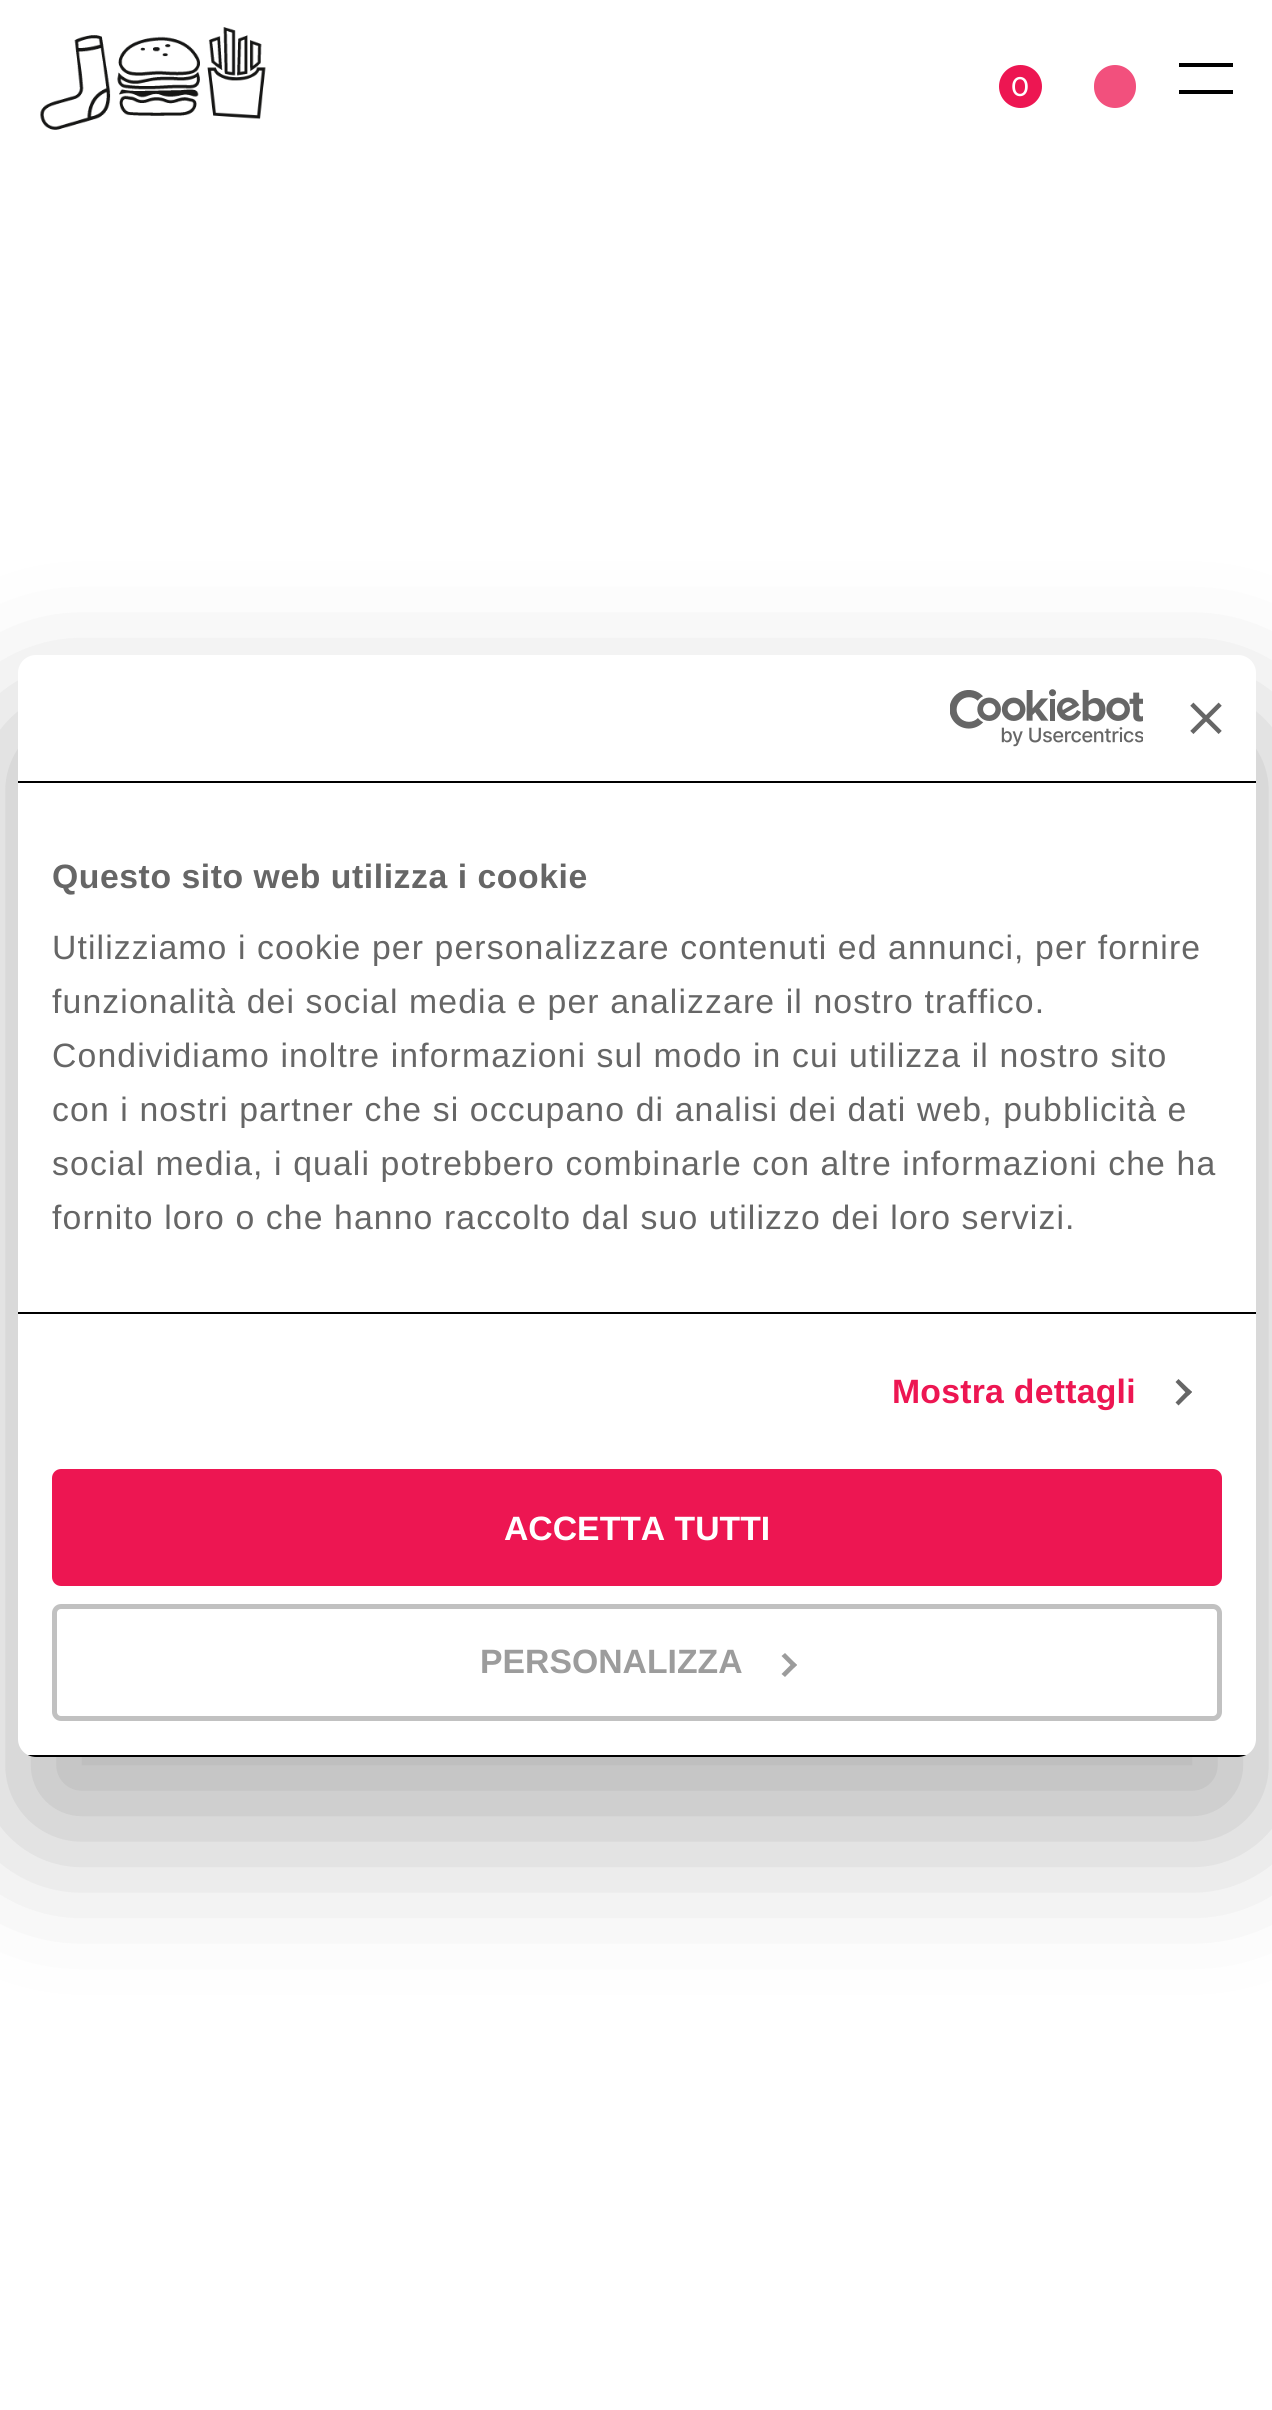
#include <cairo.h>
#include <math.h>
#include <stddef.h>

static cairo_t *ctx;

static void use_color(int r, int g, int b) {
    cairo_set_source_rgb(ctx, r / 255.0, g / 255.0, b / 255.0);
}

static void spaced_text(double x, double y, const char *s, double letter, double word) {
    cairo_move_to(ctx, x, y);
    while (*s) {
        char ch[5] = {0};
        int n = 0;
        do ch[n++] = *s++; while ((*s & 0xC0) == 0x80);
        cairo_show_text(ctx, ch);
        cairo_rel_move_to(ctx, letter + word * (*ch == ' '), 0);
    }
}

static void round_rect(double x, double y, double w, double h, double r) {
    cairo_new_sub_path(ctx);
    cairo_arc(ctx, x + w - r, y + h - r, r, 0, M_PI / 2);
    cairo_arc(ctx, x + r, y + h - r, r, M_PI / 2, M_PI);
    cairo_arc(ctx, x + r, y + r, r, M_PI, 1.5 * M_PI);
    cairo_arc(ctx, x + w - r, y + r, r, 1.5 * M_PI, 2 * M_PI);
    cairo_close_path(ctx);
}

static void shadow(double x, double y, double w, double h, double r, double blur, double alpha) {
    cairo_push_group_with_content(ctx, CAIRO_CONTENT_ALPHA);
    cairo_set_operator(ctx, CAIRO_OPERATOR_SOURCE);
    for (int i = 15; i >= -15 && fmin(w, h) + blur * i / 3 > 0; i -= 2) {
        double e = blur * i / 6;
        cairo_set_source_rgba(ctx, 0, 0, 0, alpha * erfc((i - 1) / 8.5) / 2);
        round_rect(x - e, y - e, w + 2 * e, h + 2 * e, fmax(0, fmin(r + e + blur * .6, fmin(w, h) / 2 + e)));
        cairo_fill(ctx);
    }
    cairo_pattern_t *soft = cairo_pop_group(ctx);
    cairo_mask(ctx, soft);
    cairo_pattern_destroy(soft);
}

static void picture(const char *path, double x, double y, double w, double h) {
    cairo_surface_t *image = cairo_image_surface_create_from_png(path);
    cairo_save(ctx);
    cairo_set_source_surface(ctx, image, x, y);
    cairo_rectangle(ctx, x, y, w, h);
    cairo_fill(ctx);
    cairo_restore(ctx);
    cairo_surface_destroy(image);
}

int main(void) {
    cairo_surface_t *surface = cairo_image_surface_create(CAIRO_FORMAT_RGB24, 1272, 2410);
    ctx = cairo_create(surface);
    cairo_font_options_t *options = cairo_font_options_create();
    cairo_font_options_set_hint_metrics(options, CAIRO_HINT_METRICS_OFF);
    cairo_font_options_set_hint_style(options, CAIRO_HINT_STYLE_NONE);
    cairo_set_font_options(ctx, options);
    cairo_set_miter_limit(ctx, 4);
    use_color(255, 255, 255);
    cairo_paint(ctx);
    picture("img1.png", 40, 27, 226, 103);
    use_color(237, 22, 82);
    cairo_arc(ctx, 1020.5, 86.5, 21.5, 0, 2 * M_PI);
    cairo_fill(ctx);
    cairo_select_font_face(ctx, "Montserrat Medium", CAIRO_FONT_SLANT_NORMAL, CAIRO_FONT_WEIGHT_NORMAL);
    cairo_set_font_size(ctx, 27);
    use_color(255, 255, 255);
    cairo_move_to(ctx, 1011, 96);
    cairo_show_text(ctx, "0");
    use_color(242, 80, 125);
    round_rect(1094, 65, 42, 43, 21);
    cairo_fill(ctx);
    use_color(0, 0, 0);
    cairo_rectangle(ctx, 1179, 63, 54, 4);
    cairo_fill(ctx);
    cairo_rectangle(ctx, 1179, 90, 54, 4);
    cairo_fill(ctx);
    use_color(0, 0, 0);
    shadow(18, 727, 1238, 1102, 18, 76.5, 0.3);
    use_color(255, 255, 255);
    round_rect(18, 655, 1238, 1102, 18);
    cairo_fill(ctx);
    use_color(0, 0, 0);
    cairo_rectangle(ctx, 18, 781, 1238, 2);
    cairo_fill(ctx);
    picture("img2.png", 950, 689, 193, 58);
    picture("img3.png", 1190, 702, 32, 32);
    cairo_rectangle(ctx, 18, 1312, 1238, 2);
    cairo_fill(ctx);
    cairo_select_font_face(ctx, "Liberation Sans", CAIRO_FONT_SLANT_NORMAL, CAIRO_FONT_WEIGHT_BOLD);
    cairo_set_font_size(ctx, 33.75);
    use_color(102, 102, 102);
    spaced_text(52, 888, "Questo sito web utilizza i cookie", 0.55, 0);
    cairo_select_font_face(ctx, "Liberation Sans", CAIRO_FONT_SLANT_NORMAL, CAIRO_FONT_WEIGHT_NORMAL);
    spaced_text(52, 959, "Utilizziamo i cookie per personalizzare contenuti ed annunci, per fornire", 1.12, 0);
    spaced_text(52, 1013, "funzionalità dei social media e per analizzare il nostro traffico.", 1.12, 0);
    spaced_text(52, 1067, "Condividiamo inoltre informazioni sul modo in cui utilizza il nostro sito", 1.12, 0);
    spaced_text(52, 1121, "con i nostri partner che si occupano di analisi dei dati web, pubblicità e", 1.12, 0);
    spaced_text(52, 1175, "social media, i quali potrebbero combinarle con altre informazioni che ha", 1.12, 0);
    spaced_text(52, 1229, "fornito loro o che hanno raccolto dal suo utilizzo dei loro servizi.", 1.12, 0);
    cairo_select_font_face(ctx, "Liberation Sans", CAIRO_FONT_SLANT_NORMAL, CAIRO_FONT_WEIGHT_BOLD);
    use_color(237, 22, 82);
    spaced_text(892, 1403, "Mostra dettagli", 0.25, 0);
    use_color(102, 102, 102);
    cairo_new_path(ctx);
    cairo_move_to(ctx, 1178.5, 1379);
    cairo_line_to(ctx, 1192, 1392);
    cairo_line_to(ctx, 1188.5, 1395.5);
    cairo_line_to(ctx, 1175.5, 1382);
    cairo_close_path(ctx);
    cairo_fill(ctx);
    cairo_new_path(ctx);
    cairo_move_to(ctx, 1188.5, 1389);
    cairo_line_to(ctx, 1192, 1392);
    cairo_line_to(ctx, 1178.5, 1405.5);
    cairo_line_to(ctx, 1175.5, 1402.5);
    cairo_close_path(ctx);
    cairo_fill(ctx);
    cairo_save(ctx);
    round_rect(18, 655, 1238, 1102, 18);
    cairo_clip(ctx);
    use_color(0, 0, 0);
    cairo_rectangle(ctx, 28, 1755, 1218, 2);
    cairo_fill(ctx);
    cairo_restore(ctx);
    use_color(237, 22, 82);
    round_rect(54.5, 1471.5, 1165, 112, 6.5);
    cairo_fill_preserve(ctx);
    cairo_set_line_width(ctx, 5);
    cairo_stroke(ctx);
    use_color(255, 255, 255);
    cairo_move_to(ctx, 504, 1540);
    cairo_show_text(ctx, "ACCETTA TUTTI");
    round_rect(54.5, 1606.5, 1165, 112, 6.5);
    use_color(193, 193, 193);
    cairo_stroke(ctx);
    use_color(156, 156, 156);
    cairo_move_to(ctx, 480, 1673);
    cairo_show_text(ctx, "PERSONALIZZA");
    cairo_new_path(ctx);
    cairo_move_to(ctx, 785, 1653);
    cairo_line_to(ctx, 797, 1665);
    cairo_line_to(ctx, 793.5, 1668);
    cairo_line_to(ctx, 781.5, 1656);
    cairo_close_path(ctx);
    cairo_fill(ctx);
    cairo_new_path(ctx);
    cairo_move_to(ctx, 793.5, 1662);
    cairo_line_to(ctx, 797, 1665);
    cairo_line_to(ctx, 785, 1677);
    cairo_line_to(ctx, 781.5, 1674);
    cairo_close_path(ctx);
    cairo_fill(ctx);
    cairo_surface_write_to_png(surface, "result.png");
    cairo_font_options_destroy(options);
    cairo_destroy(ctx);
    cairo_surface_destroy(surface);
    return 0;
}
